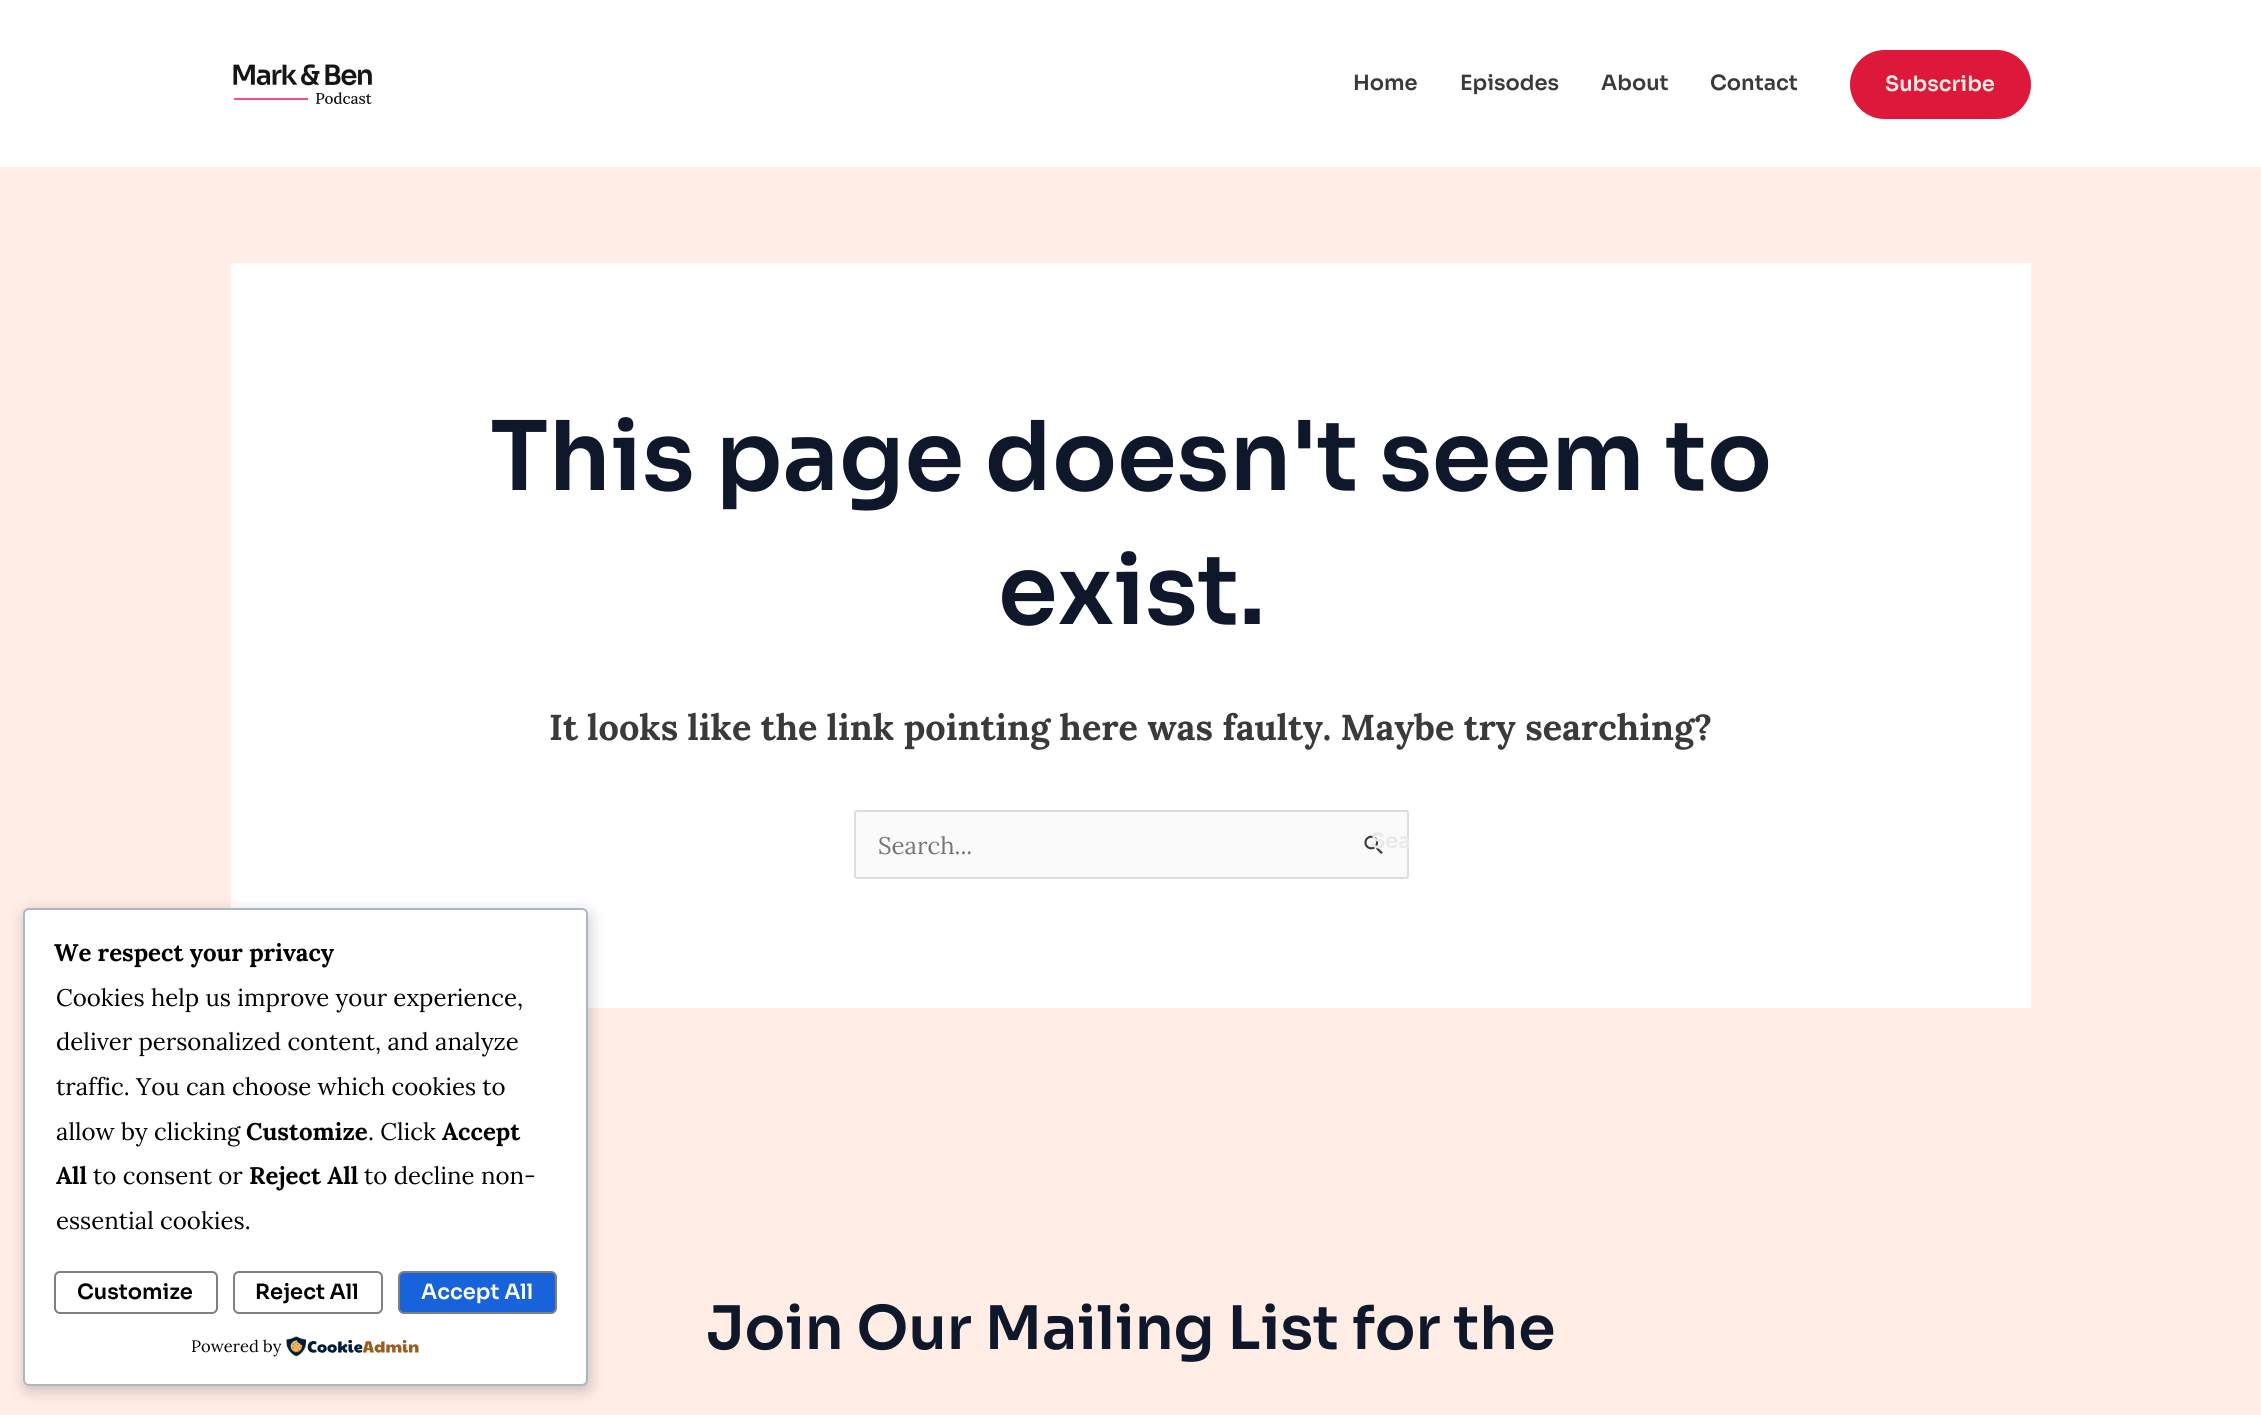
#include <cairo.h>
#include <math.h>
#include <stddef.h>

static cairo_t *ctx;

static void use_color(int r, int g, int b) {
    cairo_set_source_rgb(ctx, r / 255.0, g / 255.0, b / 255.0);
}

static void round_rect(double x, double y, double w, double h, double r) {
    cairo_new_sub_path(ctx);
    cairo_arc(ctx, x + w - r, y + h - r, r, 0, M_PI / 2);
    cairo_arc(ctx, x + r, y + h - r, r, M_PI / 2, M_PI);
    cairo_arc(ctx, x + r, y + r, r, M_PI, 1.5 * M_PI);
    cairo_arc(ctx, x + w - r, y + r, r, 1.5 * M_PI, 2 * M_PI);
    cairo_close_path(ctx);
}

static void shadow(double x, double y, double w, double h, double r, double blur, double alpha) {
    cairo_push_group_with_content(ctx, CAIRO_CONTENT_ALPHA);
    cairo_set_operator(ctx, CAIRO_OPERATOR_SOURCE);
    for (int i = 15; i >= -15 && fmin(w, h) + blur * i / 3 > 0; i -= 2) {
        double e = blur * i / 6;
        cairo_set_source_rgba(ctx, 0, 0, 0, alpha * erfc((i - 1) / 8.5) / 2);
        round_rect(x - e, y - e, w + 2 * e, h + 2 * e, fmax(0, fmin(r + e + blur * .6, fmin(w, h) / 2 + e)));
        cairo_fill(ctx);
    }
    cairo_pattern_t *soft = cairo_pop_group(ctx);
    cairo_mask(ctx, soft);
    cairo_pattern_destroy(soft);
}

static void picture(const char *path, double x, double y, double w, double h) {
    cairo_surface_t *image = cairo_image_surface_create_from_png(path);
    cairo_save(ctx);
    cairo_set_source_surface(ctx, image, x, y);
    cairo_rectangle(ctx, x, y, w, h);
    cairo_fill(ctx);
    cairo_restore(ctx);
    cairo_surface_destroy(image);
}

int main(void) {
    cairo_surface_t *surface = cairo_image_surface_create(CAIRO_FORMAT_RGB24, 2261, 1415);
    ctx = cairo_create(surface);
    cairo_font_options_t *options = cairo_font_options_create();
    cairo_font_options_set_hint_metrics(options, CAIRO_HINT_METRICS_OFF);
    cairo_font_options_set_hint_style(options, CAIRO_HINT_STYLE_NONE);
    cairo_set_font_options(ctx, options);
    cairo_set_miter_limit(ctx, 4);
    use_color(255, 237, 230);
    cairo_paint(ctx);
    use_color(255, 255, 255);
    cairo_rectangle(ctx, 231, 263, 1800, 745);
    cairo_fill(ctx);
    use_color(0, 0, 0);
    shadow(24, 912, 566, 479, 6, 7.5, 0.2);
    use_color(255, 255, 255);
    round_rect(24, 909, 563, 476, 5);
    cairo_fill_preserve(ctx);
    use_color(171, 184, 195);
    cairo_stroke(ctx);
    cairo_select_font_face(ctx, "Lora", CAIRO_FONT_SLANT_NORMAL, CAIRO_FONT_WEIGHT_BOLD);
    cairo_set_font_size(ctx, 24);
    use_color(0, 0, 0);
    cairo_move_to(ctx, 54, 961);
    cairo_show_text(ctx, "We respect your privacy");
    cairo_select_font_face(ctx, "Lora", CAIRO_FONT_SLANT_NORMAL, CAIRO_FONT_WEIGHT_NORMAL);
    cairo_move_to(ctx, 56, 1006);
    cairo_show_text(ctx, "Cookies help us improve your experience,");
    cairo_move_to(ctx, 56, 1050);
    cairo_show_text(ctx, "deliver personalized content, and analyze");
    cairo_move_to(ctx, 56, 1095);
    cairo_show_text(ctx, "traffic. You can choose which cookies to");
    cairo_move_to(ctx, 56, 1140);
    cairo_show_text(ctx, "allow by clicking");
    cairo_select_font_face(ctx, "Lora", CAIRO_FONT_SLANT_NORMAL, CAIRO_FONT_WEIGHT_BOLD);
    cairo_move_to(ctx, 246, 1140);
    cairo_show_text(ctx, "Customize");
    cairo_select_font_face(ctx, "Lora", CAIRO_FONT_SLANT_NORMAL, CAIRO_FONT_WEIGHT_NORMAL);
    cairo_move_to(ctx, 368, 1140);
    cairo_show_text(ctx, ". Click");
    cairo_select_font_face(ctx, "Lora", CAIRO_FONT_SLANT_NORMAL, CAIRO_FONT_WEIGHT_BOLD);
    cairo_move_to(ctx, 442, 1140);
    cairo_show_text(ctx, "Accept");
    cairo_move_to(ctx, 56, 1184);
    cairo_show_text(ctx, "All");
    cairo_select_font_face(ctx, "Lora", CAIRO_FONT_SLANT_NORMAL, CAIRO_FONT_WEIGHT_NORMAL);
    cairo_move_to(ctx, 93, 1184);
    cairo_show_text(ctx, "to consent or");
    cairo_select_font_face(ctx, "Lora", CAIRO_FONT_SLANT_NORMAL, CAIRO_FONT_WEIGHT_BOLD);
    cairo_move_to(ctx, 249, 1184);
    cairo_show_text(ctx, "Reject All");
    cairo_select_font_face(ctx, "Lora", CAIRO_FONT_SLANT_NORMAL, CAIRO_FONT_WEIGHT_NORMAL);
    cairo_move_to(ctx, 364, 1184);
    cairo_show_text(ctx, "to decline non-");
    cairo_move_to(ctx, 56, 1229);
    cairo_show_text(ctx, "essential cookies.");
    round_rect(55, 1272, 162, 41, 5);
    use_color(128, 128, 128);
    cairo_stroke(ctx);
    cairo_select_font_face(ctx, "Sora SemiBold", CAIRO_FONT_SLANT_NORMAL, CAIRO_FONT_WEIGHT_NORMAL);
    cairo_set_font_size(ctx, 21);
    use_color(0, 0, 0);
    cairo_move_to(ctx, 77, 1299);
    cairo_show_text(ctx, "Customize");
    round_rect(234, 1272, 148, 41, 5);
    use_color(128, 128, 128);
    cairo_stroke(ctx);
    use_color(0, 0, 0);
    cairo_move_to(ctx, 255, 1299);
    cairo_show_text(ctx, "Reject All");
    use_color(24, 99, 220);
    round_rect(399, 1272, 157, 41, 5);
    cairo_fill_preserve(ctx);
    use_color(128, 128, 128);
    cairo_stroke(ctx);
    use_color(255, 255, 255);
    cairo_move_to(ctx, 421, 1299);
    cairo_show_text(ctx, "Accept All");
    cairo_select_font_face(ctx, "Lora", CAIRO_FONT_SLANT_NORMAL, CAIRO_FONT_WEIGHT_NORMAL);
    cairo_set_font_size(ctx, 16.5);
    use_color(0, 0, 0);
    cairo_move_to(ctx, 191, 1352);
    cairo_show_text(ctx, "Powered by");
    picture("img1.png", 286, 1336, 133, 21);
    use_color(255, 255, 255);
    cairo_rectangle(ctx, 0, 0, 2261, 167);
    cairo_fill(ctx);
    picture("img2.png", 233, 64, 139, 40);
    cairo_select_font_face(ctx, "Sora SemiBold", CAIRO_FONT_SLANT_NORMAL, CAIRO_FONT_WEIGHT_NORMAL);
    cairo_set_font_size(ctx, 21);
    use_color(58, 58, 58);
    cairo_move_to(ctx, 1353, 90);
    cairo_show_text(ctx, "Home");
    cairo_move_to(ctx, 1460, 90);
    cairo_show_text(ctx, "Episodes");
    cairo_move_to(ctx, 1601, 90);
    cairo_show_text(ctx, "About");
    cairo_move_to(ctx, 1710, 90);
    cairo_show_text(ctx, "Contact");
    use_color(221, 24, 59);
    round_rect(1850, 50, 181, 69, 34.5);
    cairo_fill(ctx);
    use_color(255, 237, 230);
    cairo_move_to(ctx, 1885, 91);
    cairo_show_text(ctx, "Subscribe");
    cairo_set_font_size(ctx, 96);
    use_color(15, 23, 42);
    cairo_move_to(ctx, 490, 490);
    cairo_show_text(ctx, "This page doesn't seem to");
    cairo_move_to(ctx, 998, 624);
    cairo_show_text(ctx, "exist.");
    cairo_select_font_face(ctx, "Lora", CAIRO_FONT_SLANT_NORMAL, CAIRO_FONT_WEIGHT_BOLD);
    cairo_set_font_size(ctx, 36);
    use_color(58, 58, 58);
    cairo_move_to(ctx, 549, 740);
    cairo_show_text(ctx, "It looks like the link pointing here was faulty. Maybe try searching?");
    use_color(250, 250, 250);
    round_rect(855, 811, 553, 67, 2);
    cairo_fill_preserve(ctx);
    use_color(221, 221, 221);
    cairo_stroke(ctx);
    cairo_select_font_face(ctx, "Lora", CAIRO_FONT_SLANT_NORMAL, CAIRO_FONT_WEIGHT_NORMAL);
    cairo_set_font_size(ctx, 24);
    use_color(117, 117, 117);
    cairo_move_to(ctx, 878, 854);
    cairo_show_text(ctx, "Search...");
    picture("img3.png", 1364, 835, 19, 19);
    cairo_select_font_face(ctx, "Sora SemiBold", CAIRO_FONT_SLANT_NORMAL, CAIRO_FONT_WEIGHT_NORMAL);
    cairo_set_font_size(ctx, 21);
    use_color(233, 233, 233);
    cairo_move_to(ctx, 1371, 848);
    cairo_show_text(ctx, "Sea");
    cairo_set_font_size(ctx, 60);
    use_color(15, 23, 42);
    cairo_move_to(ctx, 706, 1349);
    cairo_show_text(ctx, "Join Our Mailing List for the");
    cairo_surface_write_to_png(surface, "result.png");
    cairo_font_options_destroy(options);
    cairo_destroy(ctx);
    cairo_surface_destroy(surface);
    return 0;
}
